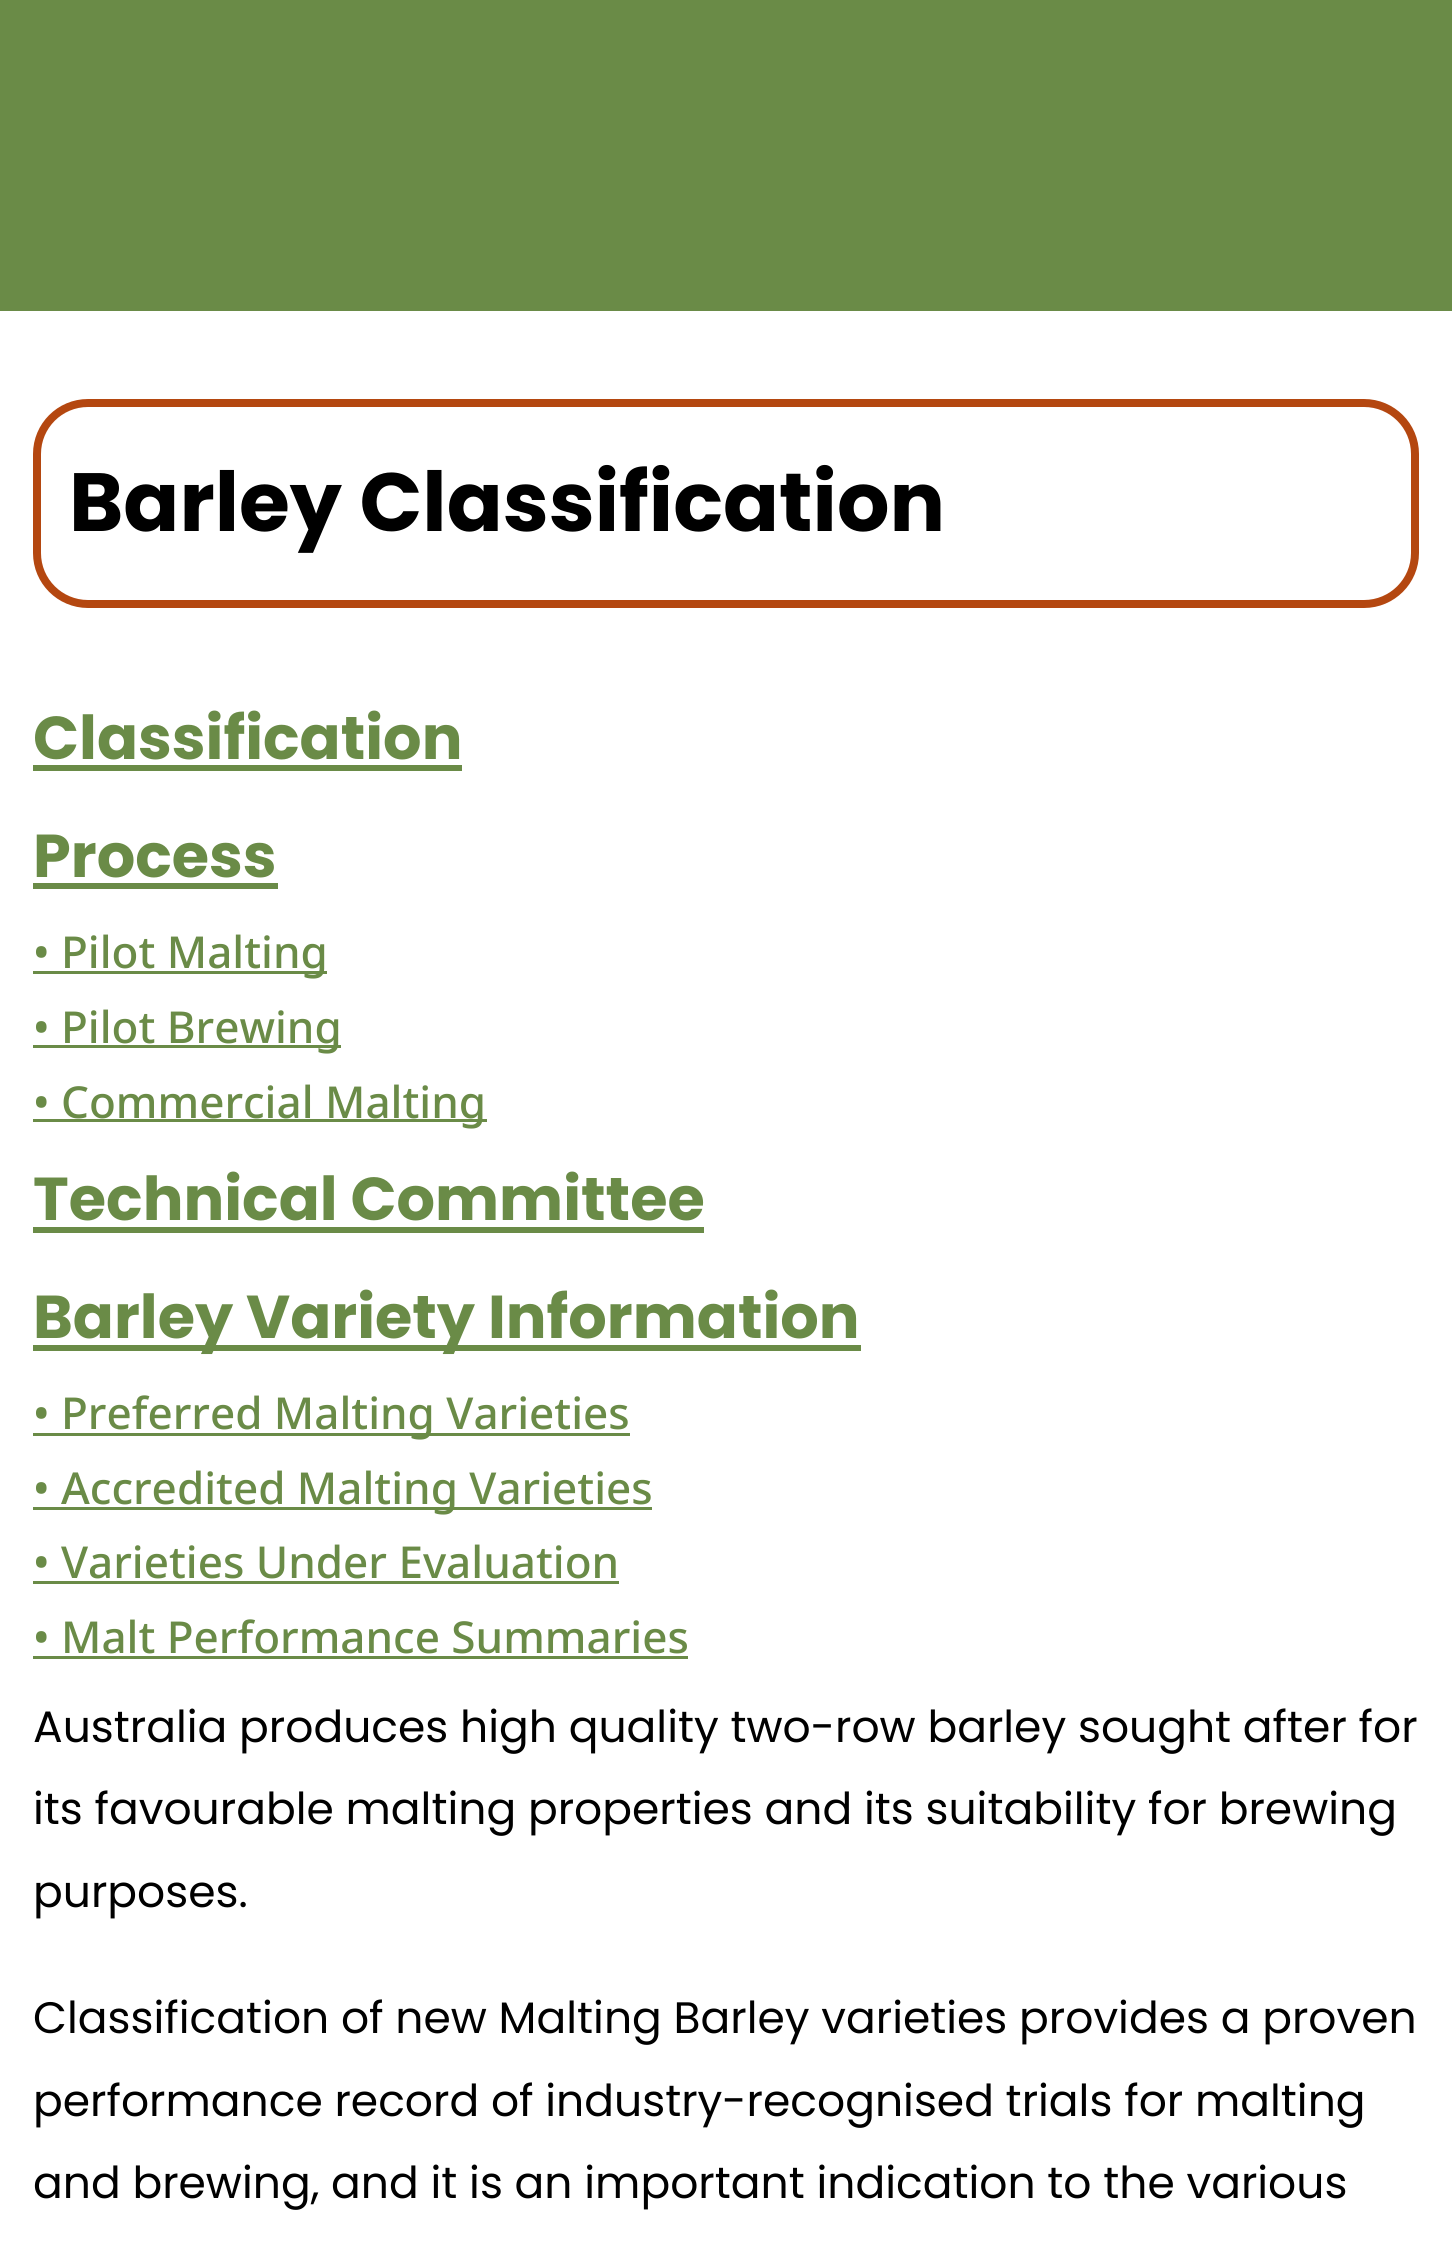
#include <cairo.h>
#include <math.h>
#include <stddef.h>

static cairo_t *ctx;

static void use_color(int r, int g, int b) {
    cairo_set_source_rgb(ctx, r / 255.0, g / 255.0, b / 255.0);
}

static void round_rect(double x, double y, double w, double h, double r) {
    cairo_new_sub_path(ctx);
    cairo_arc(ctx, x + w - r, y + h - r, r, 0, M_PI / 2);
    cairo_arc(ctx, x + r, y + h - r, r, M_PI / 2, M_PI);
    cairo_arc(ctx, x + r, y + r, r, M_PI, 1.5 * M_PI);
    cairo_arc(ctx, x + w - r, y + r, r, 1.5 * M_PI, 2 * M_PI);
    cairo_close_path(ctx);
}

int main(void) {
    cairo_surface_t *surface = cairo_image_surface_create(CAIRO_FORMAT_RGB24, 1452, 2252);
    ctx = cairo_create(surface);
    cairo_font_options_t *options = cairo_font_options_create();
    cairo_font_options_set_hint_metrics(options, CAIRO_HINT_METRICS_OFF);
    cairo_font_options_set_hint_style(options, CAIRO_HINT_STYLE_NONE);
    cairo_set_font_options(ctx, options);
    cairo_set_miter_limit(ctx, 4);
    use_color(255, 255, 255);
    cairo_paint(ctx);
    use_color(106, 139, 71);
    cairo_rectangle(ctx, 0, 0, 1452, 311);
    cairo_fill(ctx);
    round_rect(37, 403, 1378, 201, 51);
    use_color(180, 71, 16);
    cairo_set_line_width(ctx, 8);
    cairo_stroke(ctx);
    cairo_select_font_face(ctx, "Poppins", CAIRO_FONT_SLANT_NORMAL, CAIRO_FONT_WEIGHT_BOLD);
    cairo_set_font_size(ctx, 82.5);
    use_color(0, 0, 0);
    cairo_move_to(ctx, 69, 531);
    cairo_show_text(ctx, "Barley Classification");
    cairo_set_font_size(ctx, 60.5);
    use_color(106, 139, 71);
    cairo_move_to(ctx, 33, 759);
    cairo_show_text(ctx, "Classification");
    cairo_rectangle(ctx, 33, 765, 429, 6);
    cairo_fill(ctx);
    cairo_move_to(ctx, 33, 877);
    cairo_show_text(ctx, "Process");
    cairo_rectangle(ctx, 33, 883, 245, 6);
    cairo_fill(ctx);
    cairo_rectangle(ctx, 33, 971, 294, 3);
    cairo_fill(ctx);
    cairo_select_font_face(ctx, "Noto Sans Medium", CAIRO_FONT_SLANT_NORMAL, CAIRO_FONT_WEIGHT_NORMAL);
    cairo_set_font_size(ctx, 44);
    cairo_move_to(ctx, 33, 968);
    cairo_show_text(ctx, "• Pilot Malting");
    cairo_rectangle(ctx, 33, 1045, 308, 3);
    cairo_fill(ctx);
    cairo_move_to(ctx, 33, 1043);
    cairo_show_text(ctx, "• Pilot Brewing");
    cairo_rectangle(ctx, 33, 1119, 454, 3);
    cairo_fill(ctx);
    cairo_move_to(ctx, 33, 1118);
    cairo_show_text(ctx, "• Commercial Malting");
    cairo_select_font_face(ctx, "Poppins", CAIRO_FONT_SLANT_NORMAL, CAIRO_FONT_WEIGHT_BOLD);
    cairo_set_font_size(ctx, 60.5);
    cairo_move_to(ctx, 33, 1220);
    cairo_show_text(ctx, "Technical Committee");
    cairo_rectangle(ctx, 33, 1227, 671, 6);
    cairo_fill(ctx);
    cairo_rectangle(ctx, 33, 1345, 828, 6);
    cairo_fill(ctx);
    cairo_move_to(ctx, 33, 1338);
    cairo_show_text(ctx, "Barley Variety Information");
    cairo_rectangle(ctx, 33, 1433, 597, 3);
    cairo_fill(ctx);
    cairo_select_font_face(ctx, "Noto Sans Medium", CAIRO_FONT_SLANT_NORMAL, CAIRO_FONT_WEIGHT_NORMAL);
    cairo_set_font_size(ctx, 44);
    cairo_move_to(ctx, 33, 1429);
    cairo_show_text(ctx, "• Preferred Malting Varieties");
    cairo_rectangle(ctx, 33, 1507, 619, 3);
    cairo_fill(ctx);
    cairo_move_to(ctx, 33, 1504);
    cairo_show_text(ctx, "• Accredited Malting Varieties");
    cairo_move_to(ctx, 33, 1578);
    cairo_show_text(ctx, "• Varieties Under Evaluation");
    cairo_rectangle(ctx, 33, 1581, 586, 3);
    cairo_fill(ctx);
    cairo_move_to(ctx, 33, 1653);
    cairo_show_text(ctx, "• Malt Performance Summaries");
    cairo_rectangle(ctx, 33, 1656, 655, 3);
    cairo_fill(ctx);
    cairo_select_font_face(ctx, "Poppins", CAIRO_FONT_SLANT_NORMAL, CAIRO_FONT_WEIGHT_NORMAL);
    use_color(0, 0, 0);
    cairo_move_to(ctx, 33, 1742);
    cairo_show_text(ctx, "Australia produces high quality two-row barley sought after for");
    cairo_move_to(ctx, 33, 1824);
    cairo_show_text(ctx, "its favourable malting properties and its suitability for brewing");
    cairo_move_to(ctx, 33, 1907);
    cairo_show_text(ctx, "purposes.");
    cairo_move_to(ctx, 33, 2033);
    cairo_show_text(ctx, "Classification of new Malting Barley varieties provides a proven");
    cairo_move_to(ctx, 33, 2116);
    cairo_show_text(ctx, "performance record of industry-recognised trials for malting");
    cairo_move_to(ctx, 33, 2198);
    cairo_show_text(ctx, "and brewing, and it is an important indication to the various");
    cairo_surface_write_to_png(surface, "result.png");
    cairo_font_options_destroy(options);
    cairo_destroy(ctx);
    cairo_surface_destroy(surface);
    return 0;
}
